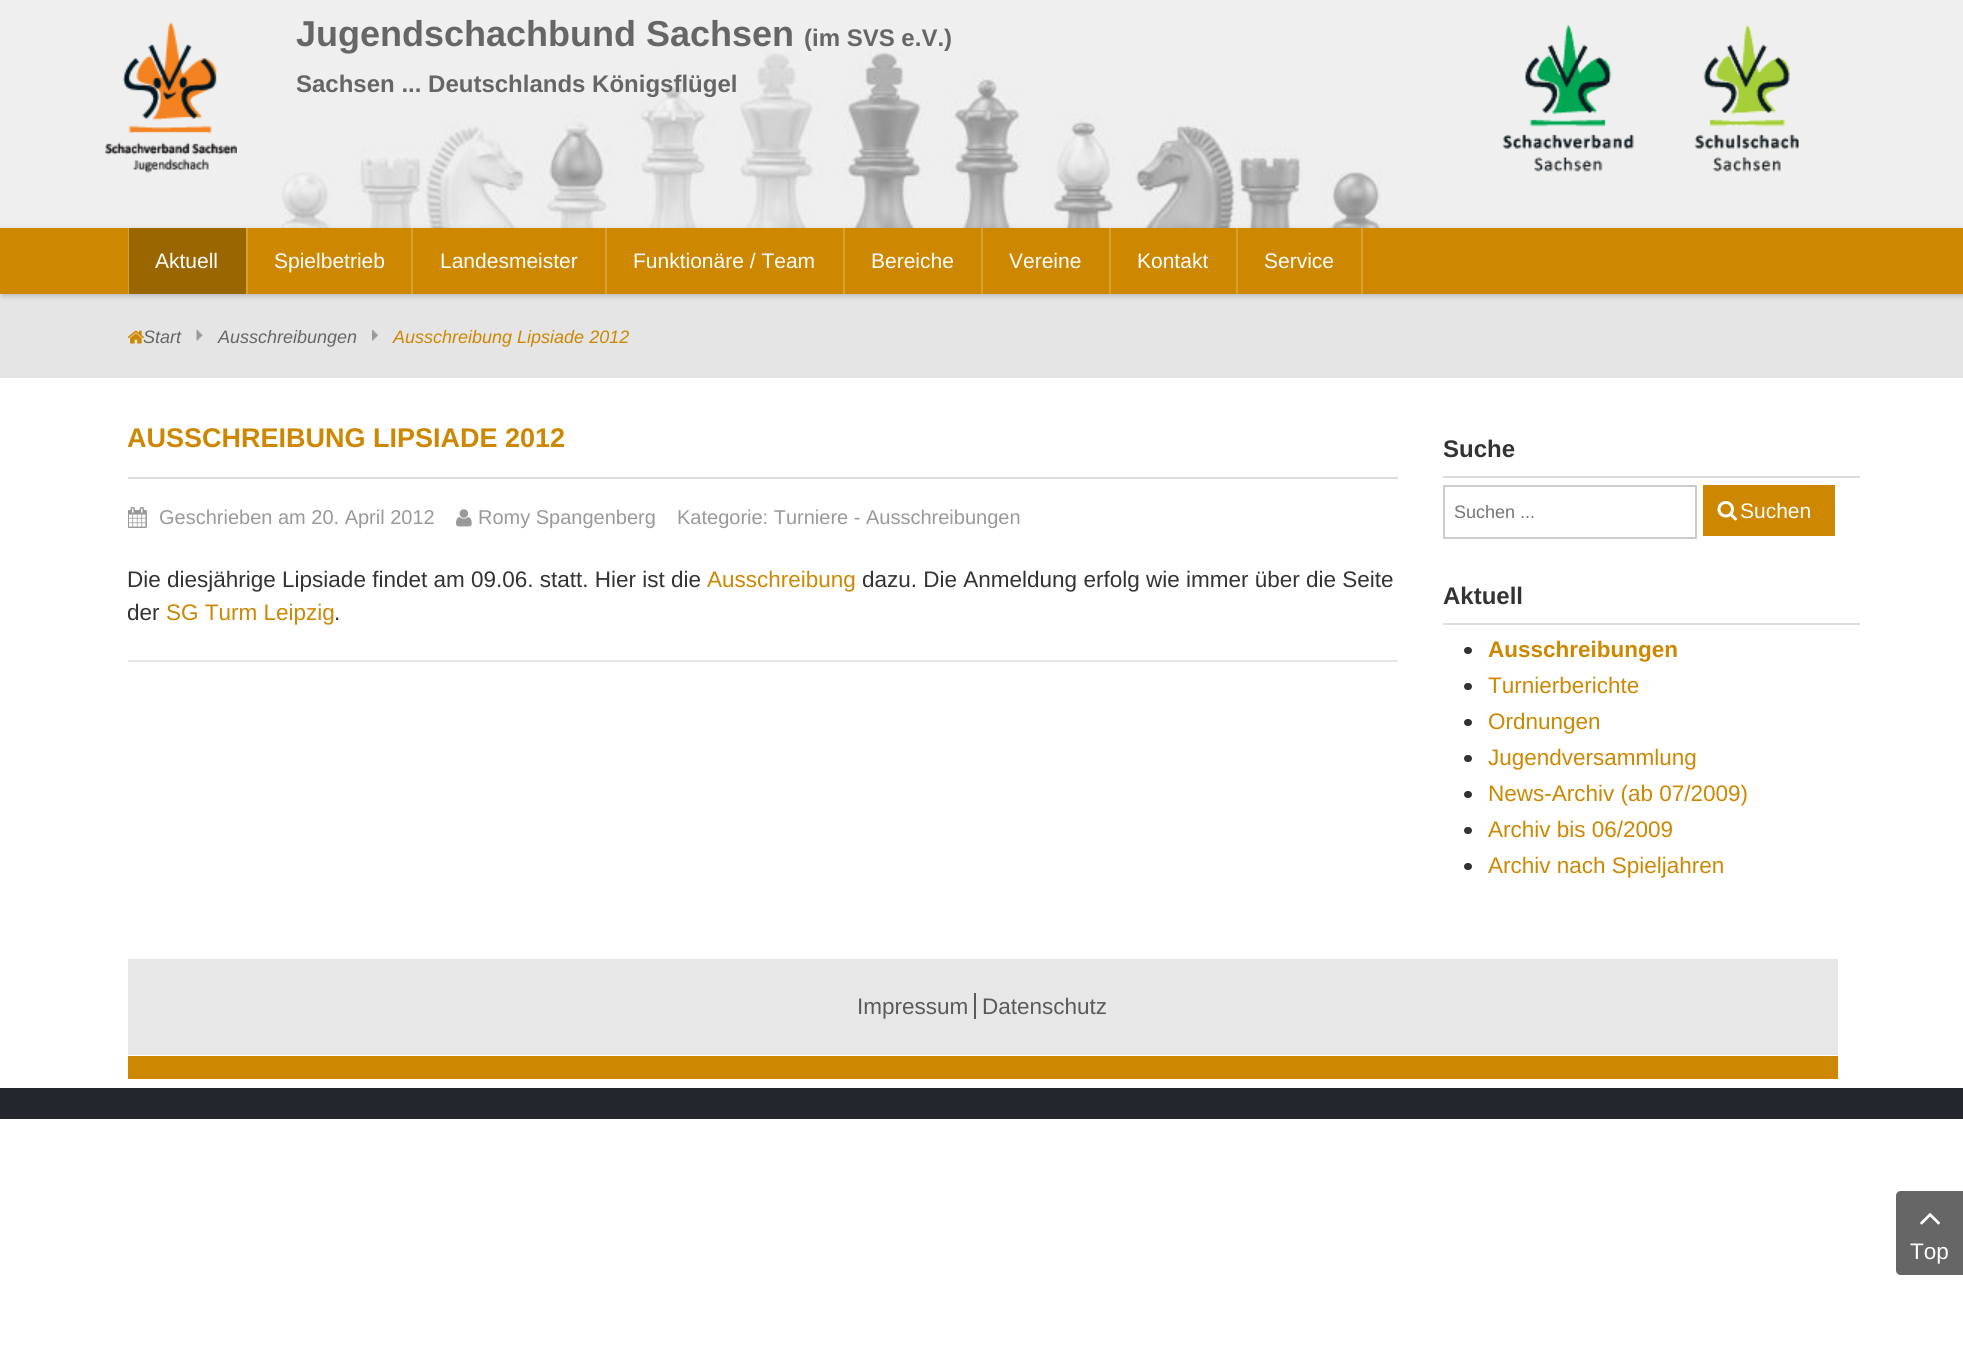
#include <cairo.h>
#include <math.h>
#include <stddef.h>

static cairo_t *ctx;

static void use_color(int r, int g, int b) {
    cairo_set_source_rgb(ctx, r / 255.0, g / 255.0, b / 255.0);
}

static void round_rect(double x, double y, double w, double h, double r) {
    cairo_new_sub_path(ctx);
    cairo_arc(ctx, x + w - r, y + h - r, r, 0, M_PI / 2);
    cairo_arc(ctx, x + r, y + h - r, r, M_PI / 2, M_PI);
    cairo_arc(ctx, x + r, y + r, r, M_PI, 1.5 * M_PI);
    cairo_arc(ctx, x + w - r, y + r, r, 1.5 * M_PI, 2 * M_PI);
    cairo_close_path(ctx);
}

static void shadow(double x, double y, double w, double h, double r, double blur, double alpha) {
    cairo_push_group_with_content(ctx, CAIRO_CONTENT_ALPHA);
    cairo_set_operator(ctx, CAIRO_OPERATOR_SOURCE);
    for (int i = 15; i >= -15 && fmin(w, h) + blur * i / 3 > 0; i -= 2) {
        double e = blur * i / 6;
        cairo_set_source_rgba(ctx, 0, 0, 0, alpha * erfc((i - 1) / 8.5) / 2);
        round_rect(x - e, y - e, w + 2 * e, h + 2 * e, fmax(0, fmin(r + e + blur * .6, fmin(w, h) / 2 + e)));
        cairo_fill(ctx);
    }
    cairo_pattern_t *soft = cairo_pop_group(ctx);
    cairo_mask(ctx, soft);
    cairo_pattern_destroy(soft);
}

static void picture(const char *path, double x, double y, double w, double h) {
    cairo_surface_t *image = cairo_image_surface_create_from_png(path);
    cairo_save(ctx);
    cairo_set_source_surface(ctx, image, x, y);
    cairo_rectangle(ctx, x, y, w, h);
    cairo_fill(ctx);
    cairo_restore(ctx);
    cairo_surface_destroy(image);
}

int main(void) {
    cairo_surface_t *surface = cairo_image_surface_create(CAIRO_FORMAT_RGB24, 1963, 1350);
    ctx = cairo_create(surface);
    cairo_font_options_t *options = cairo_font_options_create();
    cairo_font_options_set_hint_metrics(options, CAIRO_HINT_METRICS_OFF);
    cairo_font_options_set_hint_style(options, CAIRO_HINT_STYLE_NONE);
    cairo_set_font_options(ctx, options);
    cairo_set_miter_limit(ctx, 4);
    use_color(255, 255, 255);
    cairo_paint(ctx);
    use_color(239, 239, 239);
    cairo_rectangle(ctx, 0, 0, 1963, 228);
    cairo_fill(ctx);
    picture("img1.png", 105, 22, 132, 151);
    picture("img2.png", 282, 52, 1101, 176);
    cairo_select_font_face(ctx, "Liberation Sans", CAIRO_FONT_SLANT_NORMAL, CAIRO_FONT_WEIGHT_BOLD);
    cairo_set_font_size(ctx, 36);
    use_color(102, 102, 102);
    cairo_move_to(ctx, 296, 46);
    cairo_show_text(ctx, "Jugendschachbund Sachsen");
    cairo_set_font_size(ctx, 24);
    cairo_move_to(ctx, 804, 46);
    cairo_show_text(ctx, "(im SVS e.V.)");
    cairo_move_to(ctx, 296, 92);
    cairo_show_text(ctx, "Sachsen ... Deutschlands Königsflügel");
    picture("img3.png", 1502, 25, 132, 147);
    picture("img4.png", 1694, 25, 105, 147);
    use_color(229, 229, 229);
    cairo_rectangle(ctx, 0, 294, 1963, 84);
    cairo_fill(ctx);
    use_color(0, 0, 0);
    shadow(2, 230, 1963, 66, 0, 3, 0.2);
    use_color(205, 135, 1);
    cairo_rectangle(ctx, 0, 228, 1963, 66);
    cairo_fill(ctx);
    use_color(215, 159, 52);
    cairo_rectangle(ctx, 246, 228, 2, 66);
    cairo_fill(ctx);
    cairo_rectangle(ctx, 128, 228, 1, 66);
    cairo_fill(ctx);
    use_color(154, 102, 1);
    cairo_rectangle(ctx, 129, 228, 117, 66);
    cairo_fill(ctx);
    cairo_select_font_face(ctx, "Liberation Sans", CAIRO_FONT_SLANT_NORMAL, CAIRO_FONT_WEIGHT_NORMAL);
    cairo_set_font_size(ctx, 21);
    use_color(255, 255, 255);
    cairo_move_to(ctx, 155, 268);
    cairo_show_text(ctx, "Aktuell");
    use_color(215, 159, 52);
    cairo_rectangle(ctx, 411, 228, 2, 66);
    cairo_fill(ctx);
    use_color(255, 255, 255);
    cairo_move_to(ctx, 274, 268);
    cairo_show_text(ctx, "Spielbetrieb");
    use_color(215, 159, 52);
    cairo_rectangle(ctx, 605, 228, 2, 66);
    cairo_fill(ctx);
    use_color(255, 255, 255);
    cairo_move_to(ctx, 440, 268);
    cairo_show_text(ctx, "Landesmeister");
    use_color(215, 159, 52);
    cairo_rectangle(ctx, 843, 228, 2, 66);
    cairo_fill(ctx);
    use_color(255, 255, 255);
    cairo_move_to(ctx, 633, 268);
    cairo_show_text(ctx, "Funktionäre / Team");
    use_color(215, 159, 52);
    cairo_rectangle(ctx, 981, 228, 2, 66);
    cairo_fill(ctx);
    use_color(255, 255, 255);
    cairo_move_to(ctx, 871, 268);
    cairo_show_text(ctx, "Bereiche");
    use_color(215, 159, 52);
    cairo_rectangle(ctx, 1109, 228, 2, 66);
    cairo_fill(ctx);
    use_color(255, 255, 255);
    cairo_move_to(ctx, 1009, 268);
    cairo_show_text(ctx, "Vereine");
    use_color(215, 159, 52);
    cairo_rectangle(ctx, 1236, 228, 2, 66);
    cairo_fill(ctx);
    use_color(255, 255, 255);
    cairo_move_to(ctx, 1137, 268);
    cairo_show_text(ctx, "Kontakt");
    use_color(215, 159, 52);
    cairo_rectangle(ctx, 1361, 228, 2, 66);
    cairo_fill(ctx);
    use_color(255, 255, 255);
    cairo_move_to(ctx, 1264, 268);
    cairo_show_text(ctx, "Service");
    picture("img5.png", 127, 330, 17, 14);
    cairo_select_font_face(ctx, "Liberation Sans", CAIRO_FONT_SLANT_ITALIC, CAIRO_FONT_WEIGHT_NORMAL);
    cairo_set_font_size(ctx, 18);
    use_color(102, 102, 102);
    cairo_move_to(ctx, 143, 343);
    cairo_show_text(ctx, "Start");
    picture("img6.png", 196, 330, 7, 11);
    cairo_move_to(ctx, 218, 343);
    cairo_show_text(ctx, "Ausschreibungen");
    picture("img7.png", 372, 330, 6, 11);
    use_color(205, 135, 1);
    cairo_move_to(ctx, 393, 343);
    cairo_show_text(ctx, "Ausschreibung Lipsiade 2012");
    use_color(221, 221, 221);
    cairo_rectangle(ctx, 128, 477, 1270, 2);
    cairo_fill(ctx);
    cairo_select_font_face(ctx, "Liberation Sans", CAIRO_FONT_SLANT_NORMAL, CAIRO_FONT_WEIGHT_BOLD);
    cairo_set_font_size(ctx, 27);
    use_color(205, 135, 1);
    cairo_move_to(ctx, 127, 447);
    cairo_show_text(ctx, "AUSSCHREIBUNG LIPSIADE 2012");
    picture("img8.png", 128, 507, 19, 21);
    cairo_select_font_face(ctx, "Liberation Sans", CAIRO_FONT_SLANT_NORMAL, CAIRO_FONT_WEIGHT_NORMAL);
    cairo_set_font_size(ctx, 20);
    use_color(153, 153, 153);
    cairo_move_to(ctx, 159, 524);
    cairo_show_text(ctx, "Geschrieben am 20. April 2012");
    picture("img9.png", 456, 509, 16, 18);
    cairo_move_to(ctx, 478, 524);
    cairo_show_text(ctx, "Romy Spangenberg");
    cairo_move_to(ctx, 677, 524);
    cairo_show_text(ctx, "Kategorie: Turniere - Ausschreibungen");
    use_color(231, 231, 231);
    cairo_rectangle(ctx, 128, 660, 1270, 2);
    cairo_fill(ctx);
    cairo_set_font_size(ctx, 22.5);
    use_color(51, 51, 51);
    cairo_move_to(ctx, 127, 587);
    cairo_show_text(ctx, "Die diesjährige Lipsiade findet am 09.06. statt. Hier ist die");
    use_color(205, 135, 1);
    cairo_move_to(ctx, 707, 587);
    cairo_show_text(ctx, "Ausschreibung");
    use_color(51, 51, 51);
    cairo_move_to(ctx, 862, 587);
    cairo_show_text(ctx, "dazu. Die Anmeldung erfolg wie immer über die Seite");
    cairo_save(ctx);
    cairo_rectangle(ctx, 128, 423, 1270, 239);
    cairo_clip(ctx);
    cairo_move_to(ctx, 127, 620);
    cairo_show_text(ctx, "der");
    cairo_restore(ctx);
    use_color(205, 135, 1);
    cairo_move_to(ctx, 166, 620);
    cairo_show_text(ctx, "SG Turm Leipzig");
    use_color(51, 51, 51);
    cairo_move_to(ctx, 334, 620);
    cairo_show_text(ctx, ".");
    use_color(221, 221, 221);
    cairo_rectangle(ctx, 1443, 476, 417, 2);
    cairo_fill(ctx);
    cairo_select_font_face(ctx, "Liberation Sans", CAIRO_FONT_SLANT_NORMAL, CAIRO_FONT_WEIGHT_BOLD);
    cairo_set_font_size(ctx, 24);
    use_color(51, 51, 51);
    cairo_move_to(ctx, 1443, 457);
    cairo_show_text(ctx, "Suche");
    cairo_rectangle(ctx, 1444, 486, 252, 52);
    use_color(204, 204, 204);
    cairo_stroke(ctx);
    cairo_select_font_face(ctx, "Liberation Sans", CAIRO_FONT_SLANT_NORMAL, CAIRO_FONT_WEIGHT_NORMAL);
    cairo_set_font_size(ctx, 18);
    use_color(117, 117, 117);
    cairo_move_to(ctx, 1454, 518);
    cairo_show_text(ctx, "Suchen ...");
    use_color(205, 135, 1);
    cairo_rectangle(ctx, 1703, 485, 132, 51);
    cairo_fill(ctx);
    picture("img10.png", 1717, 501, 20, 20);
    cairo_set_font_size(ctx, 21);
    use_color(255, 255, 255);
    cairo_move_to(ctx, 1740, 518);
    cairo_show_text(ctx, "Suchen");
    use_color(221, 221, 221);
    cairo_rectangle(ctx, 1443, 623, 417, 2);
    cairo_fill(ctx);
    cairo_select_font_face(ctx, "Liberation Sans", CAIRO_FONT_SLANT_NORMAL, CAIRO_FONT_WEIGHT_BOLD);
    cairo_set_font_size(ctx, 24);
    use_color(51, 51, 51);
    cairo_move_to(ctx, 1443, 604);
    cairo_show_text(ctx, "Aktuell");
    round_rect(1464, 647, 8, 7, 3.5);
    cairo_fill(ctx);
    cairo_set_font_size(ctx, 22.5);
    use_color(205, 135, 1);
    cairo_move_to(ctx, 1488, 657);
    cairo_show_text(ctx, "Ausschreibungen");
    use_color(51, 51, 51);
    round_rect(1464, 683, 8, 7, 3.5);
    cairo_fill(ctx);
    cairo_select_font_face(ctx, "Liberation Sans", CAIRO_FONT_SLANT_NORMAL, CAIRO_FONT_WEIGHT_NORMAL);
    use_color(205, 135, 1);
    cairo_move_to(ctx, 1488, 693);
    cairo_show_text(ctx, "Turnierberichte");
    use_color(51, 51, 51);
    round_rect(1464, 719, 8, 7, 3.5);
    cairo_fill(ctx);
    use_color(205, 135, 1);
    cairo_move_to(ctx, 1488, 729);
    cairo_show_text(ctx, "Ordnungen");
    use_color(51, 51, 51);
    round_rect(1464, 755, 8, 7, 3.5);
    cairo_fill(ctx);
    use_color(205, 135, 1);
    cairo_move_to(ctx, 1488, 765);
    cairo_show_text(ctx, "Jugendversammlung");
    use_color(51, 51, 51);
    round_rect(1464, 791, 8, 7, 3.5);
    cairo_fill(ctx);
    use_color(205, 135, 1);
    cairo_move_to(ctx, 1488, 801);
    cairo_show_text(ctx, "News-Archiv (ab 07/2009)");
    use_color(51, 51, 51);
    round_rect(1464, 827, 8, 7, 3.5);
    cairo_fill(ctx);
    use_color(205, 135, 1);
    cairo_move_to(ctx, 1488, 837);
    cairo_show_text(ctx, "Archiv bis 06/2009");
    use_color(51, 51, 51);
    round_rect(1464, 863, 8, 7, 3.5);
    cairo_fill(ctx);
    use_color(205, 135, 1);
    cairo_move_to(ctx, 1488, 873);
    cairo_show_text(ctx, "Archiv nach Spieljahren");
    use_color(231, 231, 231);
    cairo_rectangle(ctx, 128, 959, 1710, 96);
    cairo_fill(ctx);
    use_color(90, 90, 90);
    cairo_move_to(ctx, 857, 1014);
    cairo_show_text(ctx, "Impressum");
    cairo_rectangle(ctx, 974, 993, 2, 26);
    cairo_fill(ctx);
    cairo_move_to(ctx, 982, 1014);
    cairo_show_text(ctx, "Datenschutz");
    use_color(205, 135, 1);
    cairo_rectangle(ctx, 128, 1056, 1710, 23);
    cairo_fill(ctx);
    use_color(35, 38, 45);
    cairo_rectangle(ctx, 0, 1088, 1963, 31);
    cairo_fill(ctx);
    use_color(102, 102, 102);
    cairo_new_path(ctx);
    cairo_move_to(ctx, 1901, 1191);
    cairo_line_to(ctx, 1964, 1191);
    cairo_line_to(ctx, 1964, 1275);
    cairo_line_to(ctx, 1901, 1275);
    cairo_curve_to(ctx, 1898, 1275, 1896, 1273, 1896, 1270);
    cairo_line_to(ctx, 1896, 1196);
    cairo_curve_to(ctx, 1896, 1193, 1898, 1191, 1901, 1191);
    cairo_close_path(ctx);
    cairo_fill(ctx);
    picture("img11.png", 1920, 1213, 20, 12);
    use_color(255, 255, 255);
    cairo_move_to(ctx, 1910, 1259);
    cairo_show_text(ctx, "Top");
    cairo_surface_write_to_png(surface, "result.png");
    cairo_font_options_destroy(options);
    cairo_destroy(ctx);
    cairo_surface_destroy(surface);
    return 0;
}
